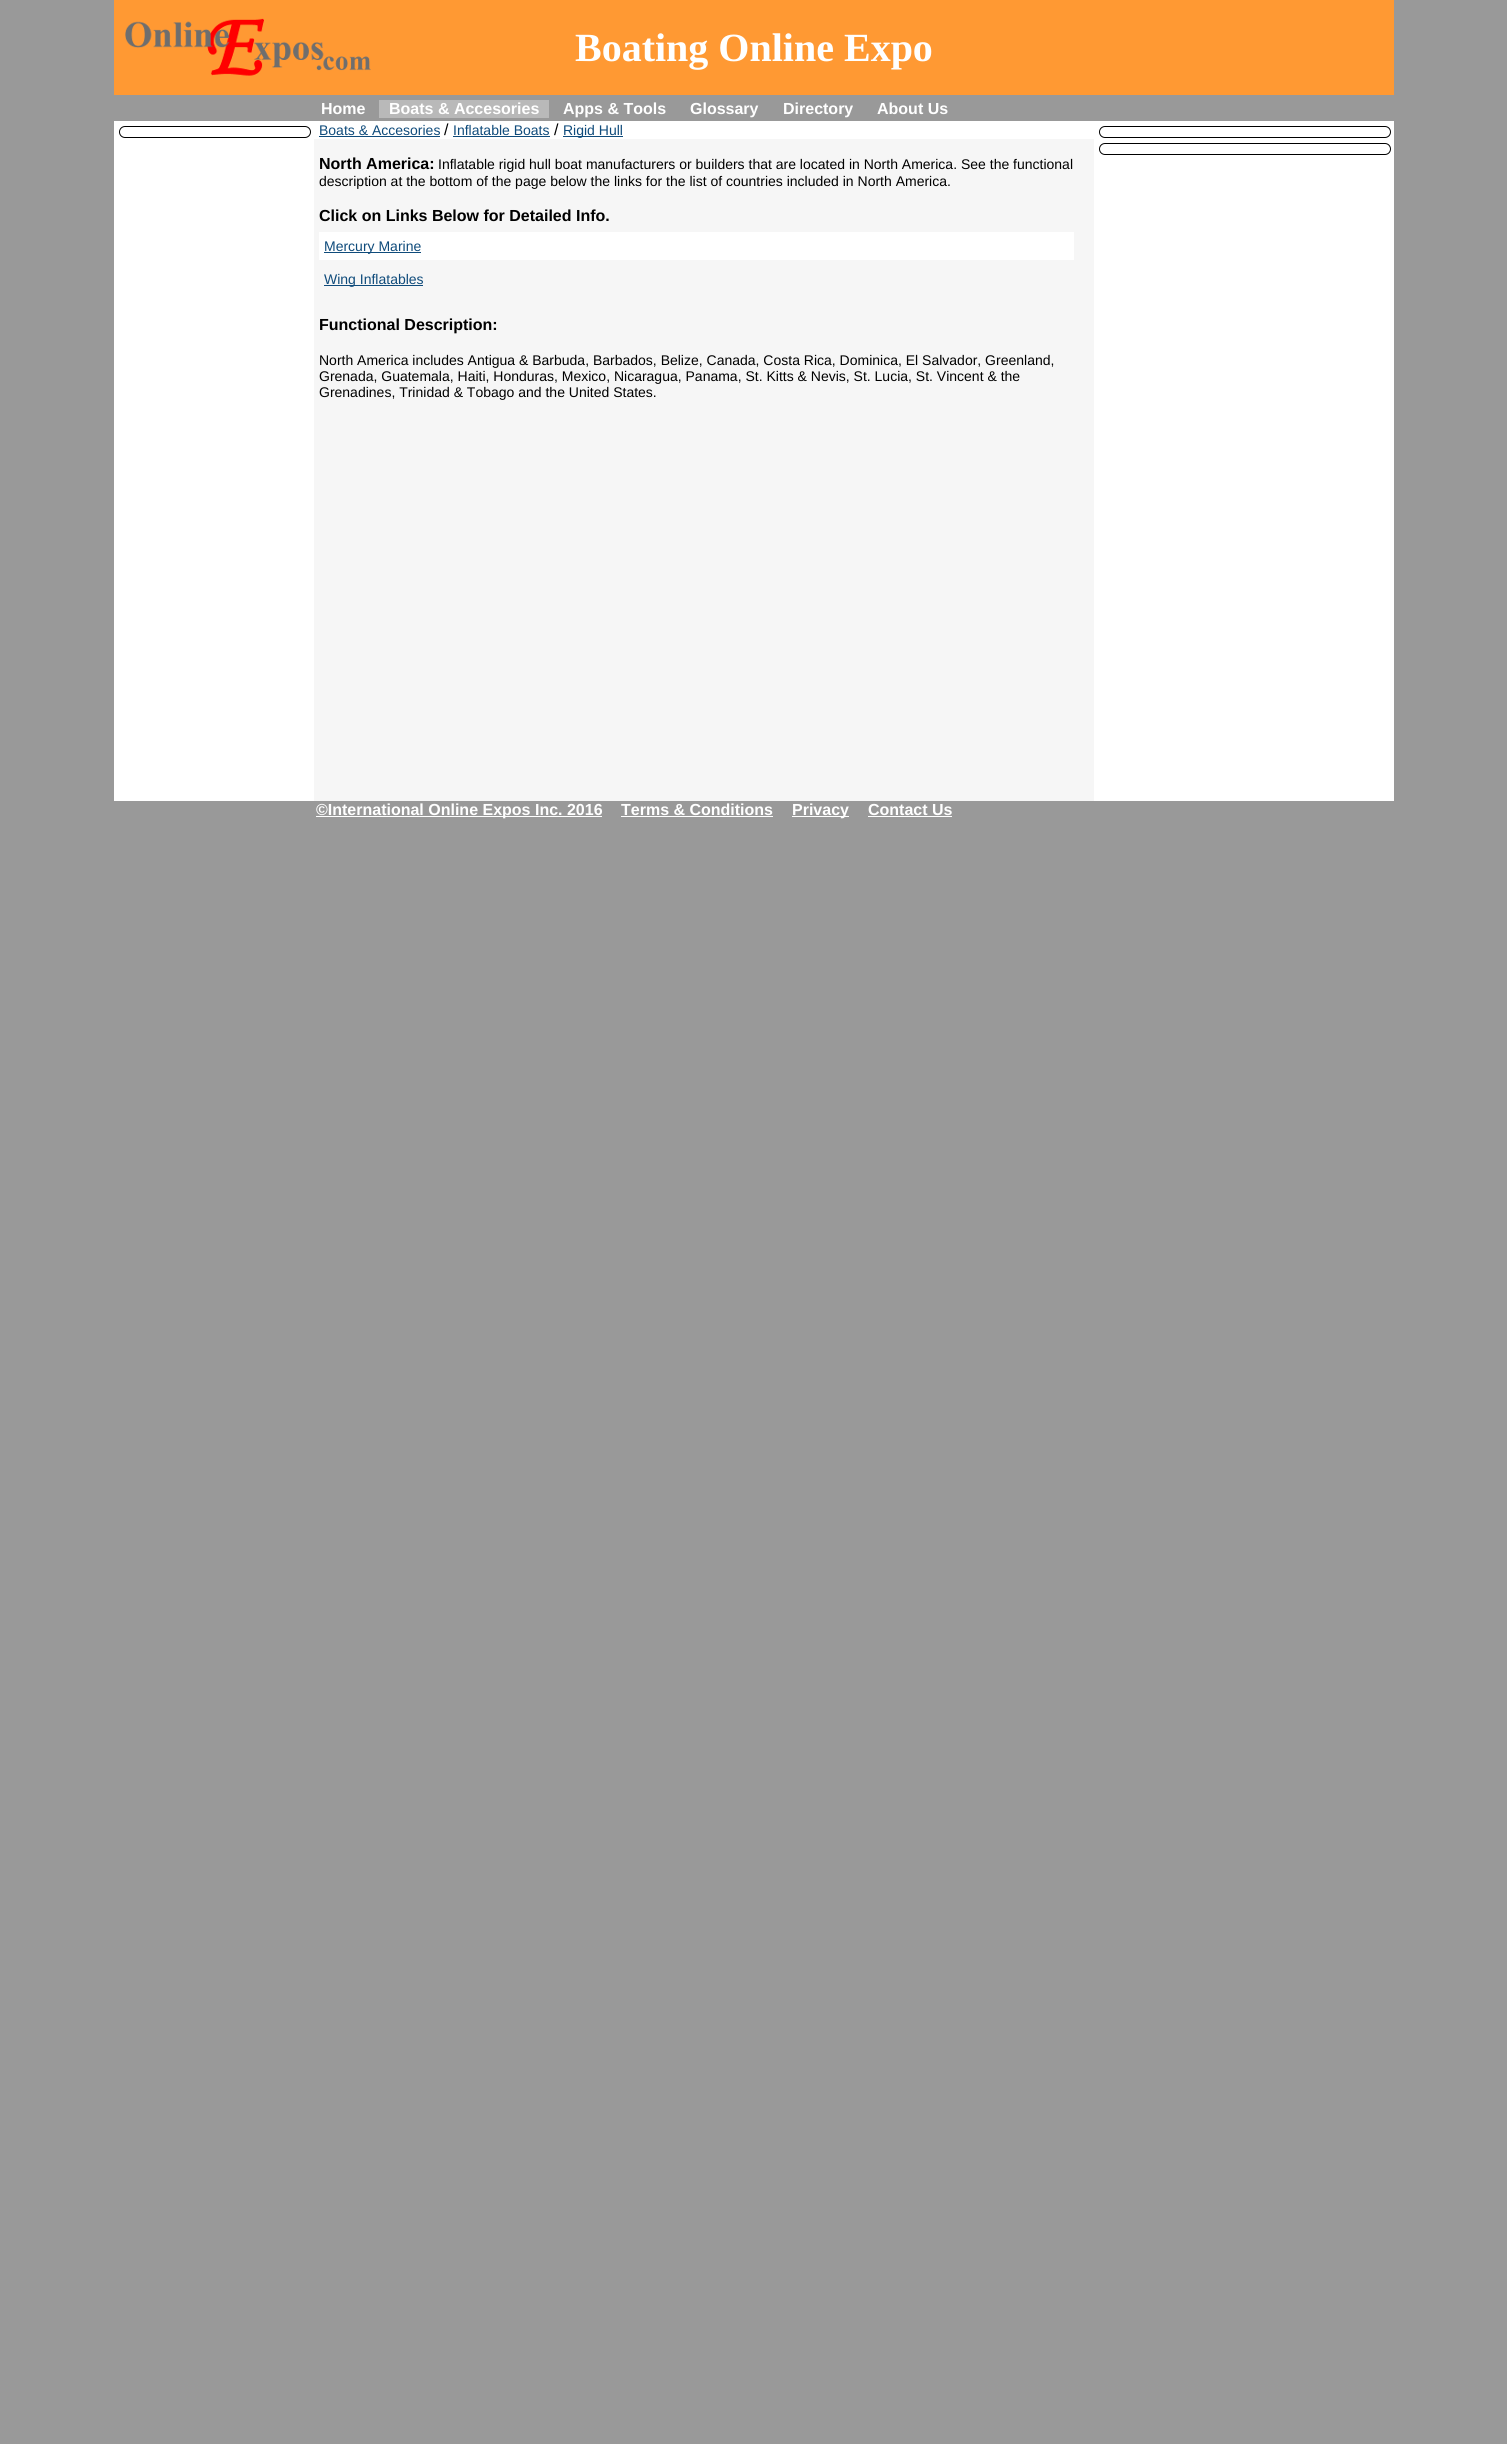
#include <cairo.h>
#include <math.h>
#include <stddef.h>

static cairo_t *ctx;

static void use_color(int r, int g, int b) {
    cairo_set_source_rgb(ctx, r / 255.0, g / 255.0, b / 255.0);
}

static void round_rect(double x, double y, double w, double h, double r) {
    cairo_new_sub_path(ctx);
    cairo_arc(ctx, x + w - r, y + h - r, r, 0, M_PI / 2);
    cairo_arc(ctx, x + r, y + h - r, r, M_PI / 2, M_PI);
    cairo_arc(ctx, x + r, y + r, r, M_PI, 1.5 * M_PI);
    cairo_arc(ctx, x + w - r, y + r, r, 1.5 * M_PI, 2 * M_PI);
    cairo_close_path(ctx);
}

static void picture(const char *path, double x, double y, double w, double h) {
    cairo_surface_t *image = cairo_image_surface_create_from_png(path);
    cairo_save(ctx);
    cairo_set_source_surface(ctx, image, x, y);
    cairo_rectangle(ctx, x, y, w, h);
    cairo_fill(ctx);
    cairo_restore(ctx);
    cairo_surface_destroy(image);
}

int main(void) {
    cairo_surface_t *surface = cairo_image_surface_create(CAIRO_FORMAT_RGB24, 1507, 2444);
    ctx = cairo_create(surface);
    cairo_font_options_t *options = cairo_font_options_create();
    cairo_font_options_set_hint_metrics(options, CAIRO_HINT_METRICS_OFF);
    cairo_font_options_set_hint_style(options, CAIRO_HINT_STYLE_NONE);
    cairo_set_font_options(ctx, options);
    cairo_set_miter_limit(ctx, 4);
    use_color(153, 153, 153);
    cairo_paint(ctx);
    use_color(255, 255, 255);
    cairo_rectangle(ctx, 114, 121, 1280, 680);
    cairo_fill(ctx);
    use_color(255, 153, 51);
    cairo_rectangle(ctx, 114, 0, 1280, 95);
    cairo_fill(ctx);
    picture("img1.png", 125, 18, 246, 58);
    cairo_select_font_face(ctx, "Liberation Serif", CAIRO_FONT_SLANT_NORMAL, CAIRO_FONT_WEIGHT_BOLD);
    cairo_set_font_size(ctx, 40);
    use_color(255, 255, 255);
    cairo_move_to(ctx, 575, 61);
    cairo_show_text(ctx, "Boating Online Expo");
    cairo_select_font_face(ctx, "Liberation Sans", CAIRO_FONT_SLANT_NORMAL, CAIRO_FONT_WEIGHT_BOLD);
    cairo_set_font_size(ctx, 16);
    cairo_move_to(ctx, 321, 114);
    cairo_show_text(ctx, "Home");
    use_color(185, 185, 185);
    cairo_rectangle(ctx, 379, 100, 170, 18);
    cairo_fill(ctx);
    use_color(255, 255, 255);
    cairo_move_to(ctx, 389, 114);
    cairo_show_text(ctx, "Boats & Accesories");
    cairo_move_to(ctx, 563, 114);
    cairo_show_text(ctx, "Apps & Tools");
    cairo_move_to(ctx, 690, 114);
    cairo_show_text(ctx, "Glossary");
    cairo_move_to(ctx, 783, 114);
    cairo_show_text(ctx, "Directory");
    cairo_move_to(ctx, 877, 114);
    cairo_show_text(ctx, "About Us");
    round_rect(119.5, 126.5, 191, 11, 5.5);
    use_color(0, 0, 0);
    cairo_set_line_width(ctx, 1);
    cairo_stroke(ctx);
    use_color(246, 246, 246);
    cairo_rectangle(ctx, 314, 139, 780, 662);
    cairo_fill(ctx);
    cairo_select_font_face(ctx, "Liberation Sans", CAIRO_FONT_SLANT_NORMAL, CAIRO_FONT_WEIGHT_NORMAL);
    cairo_set_font_size(ctx, 14);
    use_color(15, 75, 123);
    cairo_move_to(ctx, 319, 135);
    cairo_show_text(ctx, "Boats & Accesories");
    cairo_rectangle(ctx, 319, 136, 121, 1);
    cairo_fill(ctx);
    cairo_set_font_size(ctx, 16);
    use_color(0, 0, 0);
    cairo_move_to(ctx, 444, 135);
    cairo_show_text(ctx, "/");
    cairo_set_font_size(ctx, 14);
    use_color(15, 75, 123);
    cairo_move_to(ctx, 453, 135);
    cairo_show_text(ctx, "Inflatable Boats");
    cairo_rectangle(ctx, 453, 136, 97, 1);
    cairo_fill(ctx);
    cairo_set_font_size(ctx, 16);
    use_color(0, 0, 0);
    cairo_move_to(ctx, 554, 135);
    cairo_show_text(ctx, "/");
    use_color(15, 75, 123);
    cairo_rectangle(ctx, 563, 136, 60, 1);
    cairo_fill(ctx);
    cairo_set_font_size(ctx, 14);
    cairo_move_to(ctx, 563, 135);
    cairo_show_text(ctx, "Rigid Hull");
    cairo_select_font_face(ctx, "Liberation Sans", CAIRO_FONT_SLANT_NORMAL, CAIRO_FONT_WEIGHT_BOLD);
    cairo_set_font_size(ctx, 16);
    use_color(0, 0, 0);
    cairo_move_to(ctx, 319, 169);
    cairo_show_text(ctx, "North America:");
    cairo_select_font_face(ctx, "Liberation Sans", CAIRO_FONT_SLANT_NORMAL, CAIRO_FONT_WEIGHT_NORMAL);
    cairo_set_font_size(ctx, 14);
    cairo_move_to(ctx, 438, 169);
    cairo_show_text(ctx, "Inflatable rigid hull boat manufacturers or builders that are located in North America. See the functional");
    cairo_move_to(ctx, 319, 186);
    cairo_show_text(ctx, "description at the bottom of the page below the links for the list of countries included in North America.");
    cairo_select_font_face(ctx, "Liberation Sans", CAIRO_FONT_SLANT_NORMAL, CAIRO_FONT_WEIGHT_BOLD);
    cairo_set_font_size(ctx, 16);
    cairo_move_to(ctx, 319, 221);
    cairo_show_text(ctx, "Click on Links Below for Detailed Info.");
    use_color(255, 255, 255);
    cairo_rectangle(ctx, 319, 232, 755, 28);
    cairo_fill(ctx);
    use_color(15, 75, 123);
    cairo_rectangle(ctx, 324, 252, 97, 1);
    cairo_fill(ctx);
    cairo_select_font_face(ctx, "Liberation Sans", CAIRO_FONT_SLANT_NORMAL, CAIRO_FONT_WEIGHT_NORMAL);
    cairo_set_font_size(ctx, 14);
    cairo_move_to(ctx, 324, 251);
    cairo_show_text(ctx, "Mercury Marine");
    cairo_rectangle(ctx, 324, 285, 99, 1);
    cairo_fill(ctx);
    cairo_move_to(ctx, 324, 284);
    cairo_show_text(ctx, "Wing Inflatables");
    cairo_select_font_face(ctx, "Liberation Sans", CAIRO_FONT_SLANT_NORMAL, CAIRO_FONT_WEIGHT_BOLD);
    cairo_set_font_size(ctx, 16);
    use_color(0, 0, 0);
    cairo_move_to(ctx, 319, 330);
    cairo_show_text(ctx, "Functional Description:");
    cairo_select_font_face(ctx, "Liberation Sans", CAIRO_FONT_SLANT_NORMAL, CAIRO_FONT_WEIGHT_NORMAL);
    cairo_set_font_size(ctx, 14);
    cairo_move_to(ctx, 319, 365);
    cairo_show_text(ctx, "North America includes Antigua & Barbuda, Barbados, Belize, Canada, Costa Rica, Dominica, El Salvador, Greenland,");
    cairo_move_to(ctx, 319, 381);
    cairo_show_text(ctx, "Grenada, Guatemala, Haiti, Honduras, Mexico, Nicaragua, Panama, St. Kitts & Nevis, St. Lucia, St. Vincent & the");
    cairo_move_to(ctx, 319, 397);
    cairo_show_text(ctx, "Grenadines, Trinidad & Tobago and the United States.");
    round_rect(1099.5, 126.5, 291, 11, 5.5);
    cairo_stroke(ctx);
    round_rect(1099.5, 143.5, 291, 11, 5.5);
    cairo_stroke(ctx);
    use_color(255, 255, 255);
    cairo_rectangle(ctx, 316, 816, 286, 1);
    cairo_fill(ctx);
    cairo_select_font_face(ctx, "Liberation Sans", CAIRO_FONT_SLANT_NORMAL, CAIRO_FONT_WEIGHT_BOLD);
    cairo_set_font_size(ctx, 16);
    cairo_move_to(ctx, 316, 815);
    cairo_show_text(ctx, "©International Online Expos Inc. 2016");
    cairo_move_to(ctx, 621, 815);
    cairo_show_text(ctx, "Terms & Conditions");
    cairo_rectangle(ctx, 621, 816, 152, 1);
    cairo_fill(ctx);
    cairo_rectangle(ctx, 792, 816, 57, 1);
    cairo_fill(ctx);
    cairo_move_to(ctx, 792, 815);
    cairo_show_text(ctx, "Privacy");
    cairo_move_to(ctx, 868, 815);
    cairo_show_text(ctx, "Contact Us");
    cairo_rectangle(ctx, 868, 816, 84, 1);
    cairo_fill(ctx);
    cairo_surface_write_to_png(surface, "result.png");
    cairo_font_options_destroy(options);
    cairo_destroy(ctx);
    cairo_surface_destroy(surface);
    return 0;
}
